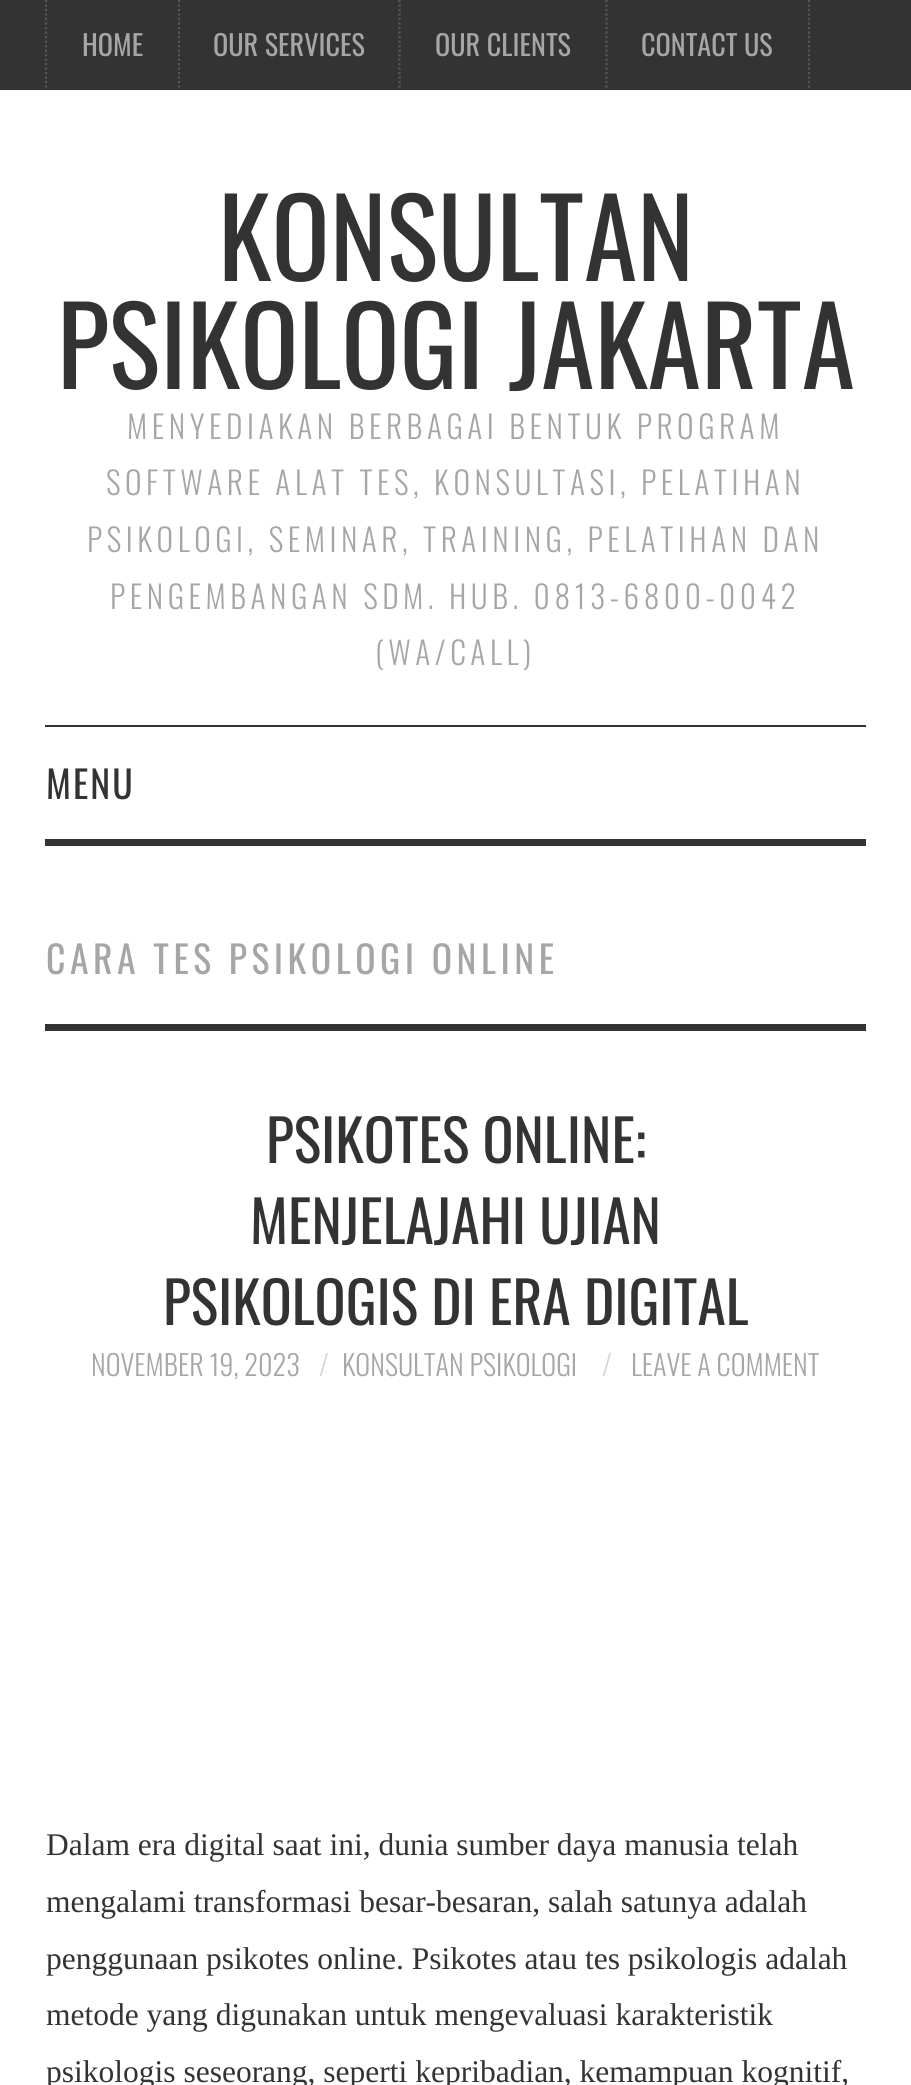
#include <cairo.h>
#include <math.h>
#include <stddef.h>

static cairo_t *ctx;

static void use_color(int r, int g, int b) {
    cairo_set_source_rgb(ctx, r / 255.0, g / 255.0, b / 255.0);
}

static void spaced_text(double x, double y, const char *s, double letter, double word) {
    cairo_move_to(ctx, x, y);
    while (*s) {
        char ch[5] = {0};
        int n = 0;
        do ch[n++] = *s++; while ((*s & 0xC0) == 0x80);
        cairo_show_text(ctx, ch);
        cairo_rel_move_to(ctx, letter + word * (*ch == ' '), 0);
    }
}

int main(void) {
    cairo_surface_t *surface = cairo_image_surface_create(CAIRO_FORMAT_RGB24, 911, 2085);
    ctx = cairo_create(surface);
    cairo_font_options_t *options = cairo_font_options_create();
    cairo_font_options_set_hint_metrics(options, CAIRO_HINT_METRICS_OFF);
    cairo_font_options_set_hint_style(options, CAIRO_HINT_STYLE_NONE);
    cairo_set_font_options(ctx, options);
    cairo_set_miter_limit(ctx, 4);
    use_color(255, 255, 255);
    cairo_paint(ctx);
    use_color(51, 51, 51);
    cairo_rectangle(ctx, 0, 0, 911, 90);
    cairo_fill(ctx);
    cairo_new_path(ctx);
    cairo_move_to(ctx, 46, 0);
    cairo_line_to(ctx, 46, 90);
    use_color(86, 86, 86);
    cairo_set_line_width(ctx, 2.2);
    cairo_set_dash(ctx, (double[]){2.25, 2.25}, 2, 0);
    cairo_stroke(ctx);
    cairo_new_path(ctx);
    cairo_move_to(ctx, 179, 0);
    cairo_line_to(ctx, 179, 90);
    cairo_stroke(ctx);
    cairo_select_font_face(ctx, "Oswald", CAIRO_FONT_SLANT_NORMAL, CAIRO_FONT_WEIGHT_NORMAL);
    cairo_set_font_size(ctx, 28.25);
    use_color(166, 166, 166);
    cairo_move_to(ctx, 82, 56);
    cairo_show_text(ctx, "HOME");
    cairo_new_path(ctx);
    cairo_move_to(ctx, 399.5, 0);
    cairo_line_to(ctx, 399.5, 90);
    use_color(86, 86, 86);
    cairo_stroke(ctx);
    use_color(166, 166, 166);
    cairo_move_to(ctx, 213, 56);
    cairo_show_text(ctx, "OUR SERVICES");
    cairo_new_path(ctx);
    cairo_move_to(ctx, 606.5, 0);
    cairo_line_to(ctx, 606.5, 90);
    use_color(86, 86, 86);
    cairo_stroke(ctx);
    use_color(166, 166, 166);
    cairo_move_to(ctx, 435, 56);
    cairo_show_text(ctx, "OUR CLIENTS");
    cairo_new_path(ctx);
    cairo_move_to(ctx, 809, 0);
    cairo_line_to(ctx, 809, 90);
    use_color(86, 86, 86);
    cairo_stroke(ctx);
    use_color(166, 166, 166);
    cairo_move_to(ctx, 641, 56);
    cairo_show_text(ctx, "CONTACT US");
    cairo_set_font_size(ctx, 108);
    use_color(51, 51, 51);
    cairo_move_to(ctx, 218, 281);
    cairo_show_text(ctx, "KONSULTAN");
    cairo_move_to(ctx, 57, 389);
    cairo_show_text(ctx, "PSIKOLOGI JAKARTA");
    cairo_select_font_face(ctx, "Oswald Light", CAIRO_FONT_SLANT_NORMAL, CAIRO_FONT_WEIGHT_NORMAL);
    cairo_set_font_size(ctx, 31.5);
    use_color(166, 166, 166);
    spaced_text(127, 439, "MENYEDIAKAN BERBAGAI BENTUK PROGRAM", 4.5, 0);
    spaced_text(106, 495, "SOFTWARE ALAT TES, KONSULTASI, PELATIHAN", 4.5, 0);
    spaced_text(87, 552, "PSIKOLOGI, SEMINAR, TRAINING, PELATIHAN DAN", 4.5, 0);
    spaced_text(110, 609, "PENGEMBANGAN SDM. HUB. 0813-6800-0042", 4.5, 0);
    spaced_text(375, 665, "(WA/CALL)", 4.5, 0);
    use_color(51, 51, 51);
    cairo_rectangle(ctx, 45, 725, 821, 2);
    cairo_fill(ctx);
    cairo_rectangle(ctx, 45, 839, 821, 7);
    cairo_fill(ctx);
    cairo_select_font_face(ctx, "Oswald", CAIRO_FONT_SLANT_NORMAL, CAIRO_FONT_WEIGHT_NORMAL);
    cairo_set_font_size(ctx, 37.75);
    spaced_text(46, 799, "MENU", 2, 0);
    cairo_rectangle(ctx, 45, 1024, 821, 7);
    cairo_fill(ctx);
    use_color(166, 166, 166);
    spaced_text(46, 974, "CARA TES PSIKOLOGI ONLINE", 4.5, 0);
    cairo_set_font_size(ctx, 57.6);
    use_color(51, 51, 51);
    cairo_move_to(ctx, 266, 1163);
    cairo_show_text(ctx, "PSIKOTES ONLINE:");
    cairo_move_to(ctx, 250, 1244);
    cairo_show_text(ctx, "MENJELAJAHI UJIAN");
    cairo_move_to(ctx, 163, 1325);
    cairo_show_text(ctx, "PSIKOLOGIS DI ERA DIGITAL");
    cairo_select_font_face(ctx, "Oswald Light", CAIRO_FONT_SLANT_NORMAL, CAIRO_FONT_WEIGHT_NORMAL);
    cairo_set_font_size(ctx, 28.25);
    use_color(166, 166, 166);
    cairo_move_to(ctx, 91, 1376);
    cairo_show_text(ctx, "NOVEMBER 19, 2023");
    use_color(214, 214, 214);
    cairo_move_to(ctx, 319, 1376);
    cairo_show_text(ctx, "/");
    use_color(166, 166, 166);
    cairo_move_to(ctx, 342, 1376);
    cairo_show_text(ctx, "KONSULTAN PSIKOLOGI");
    use_color(214, 214, 214);
    cairo_move_to(ctx, 602, 1376);
    cairo_show_text(ctx, "/");
    use_color(166, 166, 166);
    cairo_move_to(ctx, 631, 1376);
    cairo_show_text(ctx, "LEAVE A COMMENT");
    cairo_select_font_face(ctx, "Liberation Serif", CAIRO_FONT_SLANT_NORMAL, CAIRO_FONT_WEIGHT_NORMAL);
    cairo_set_font_size(ctx, 31.5);
    use_color(51, 51, 51);
    cairo_move_to(ctx, 46, 1855);
    cairo_show_text(ctx, "Dalam era digital saat ini, dunia sumber daya manusia telah");
    cairo_move_to(ctx, 46, 1912);
    cairo_show_text(ctx, "mengalami transformasi besar-besaran, salah satunya adalah");
    cairo_move_to(ctx, 46, 1969);
    cairo_show_text(ctx, "penggunaan psikotes online. Psikotes atau tes psikologis adalah");
    cairo_move_to(ctx, 46, 2025);
    cairo_show_text(ctx, "metode yang digunakan untuk mengevaluasi karakteristik");
    cairo_move_to(ctx, 46, 2082);
    cairo_show_text(ctx, "psikologis seseorang, seperti kepribadian, kemampuan kognitif,");
    cairo_surface_write_to_png(surface, "result.png");
    cairo_font_options_destroy(options);
    cairo_destroy(ctx);
    cairo_surface_destroy(surface);
    return 0;
}
